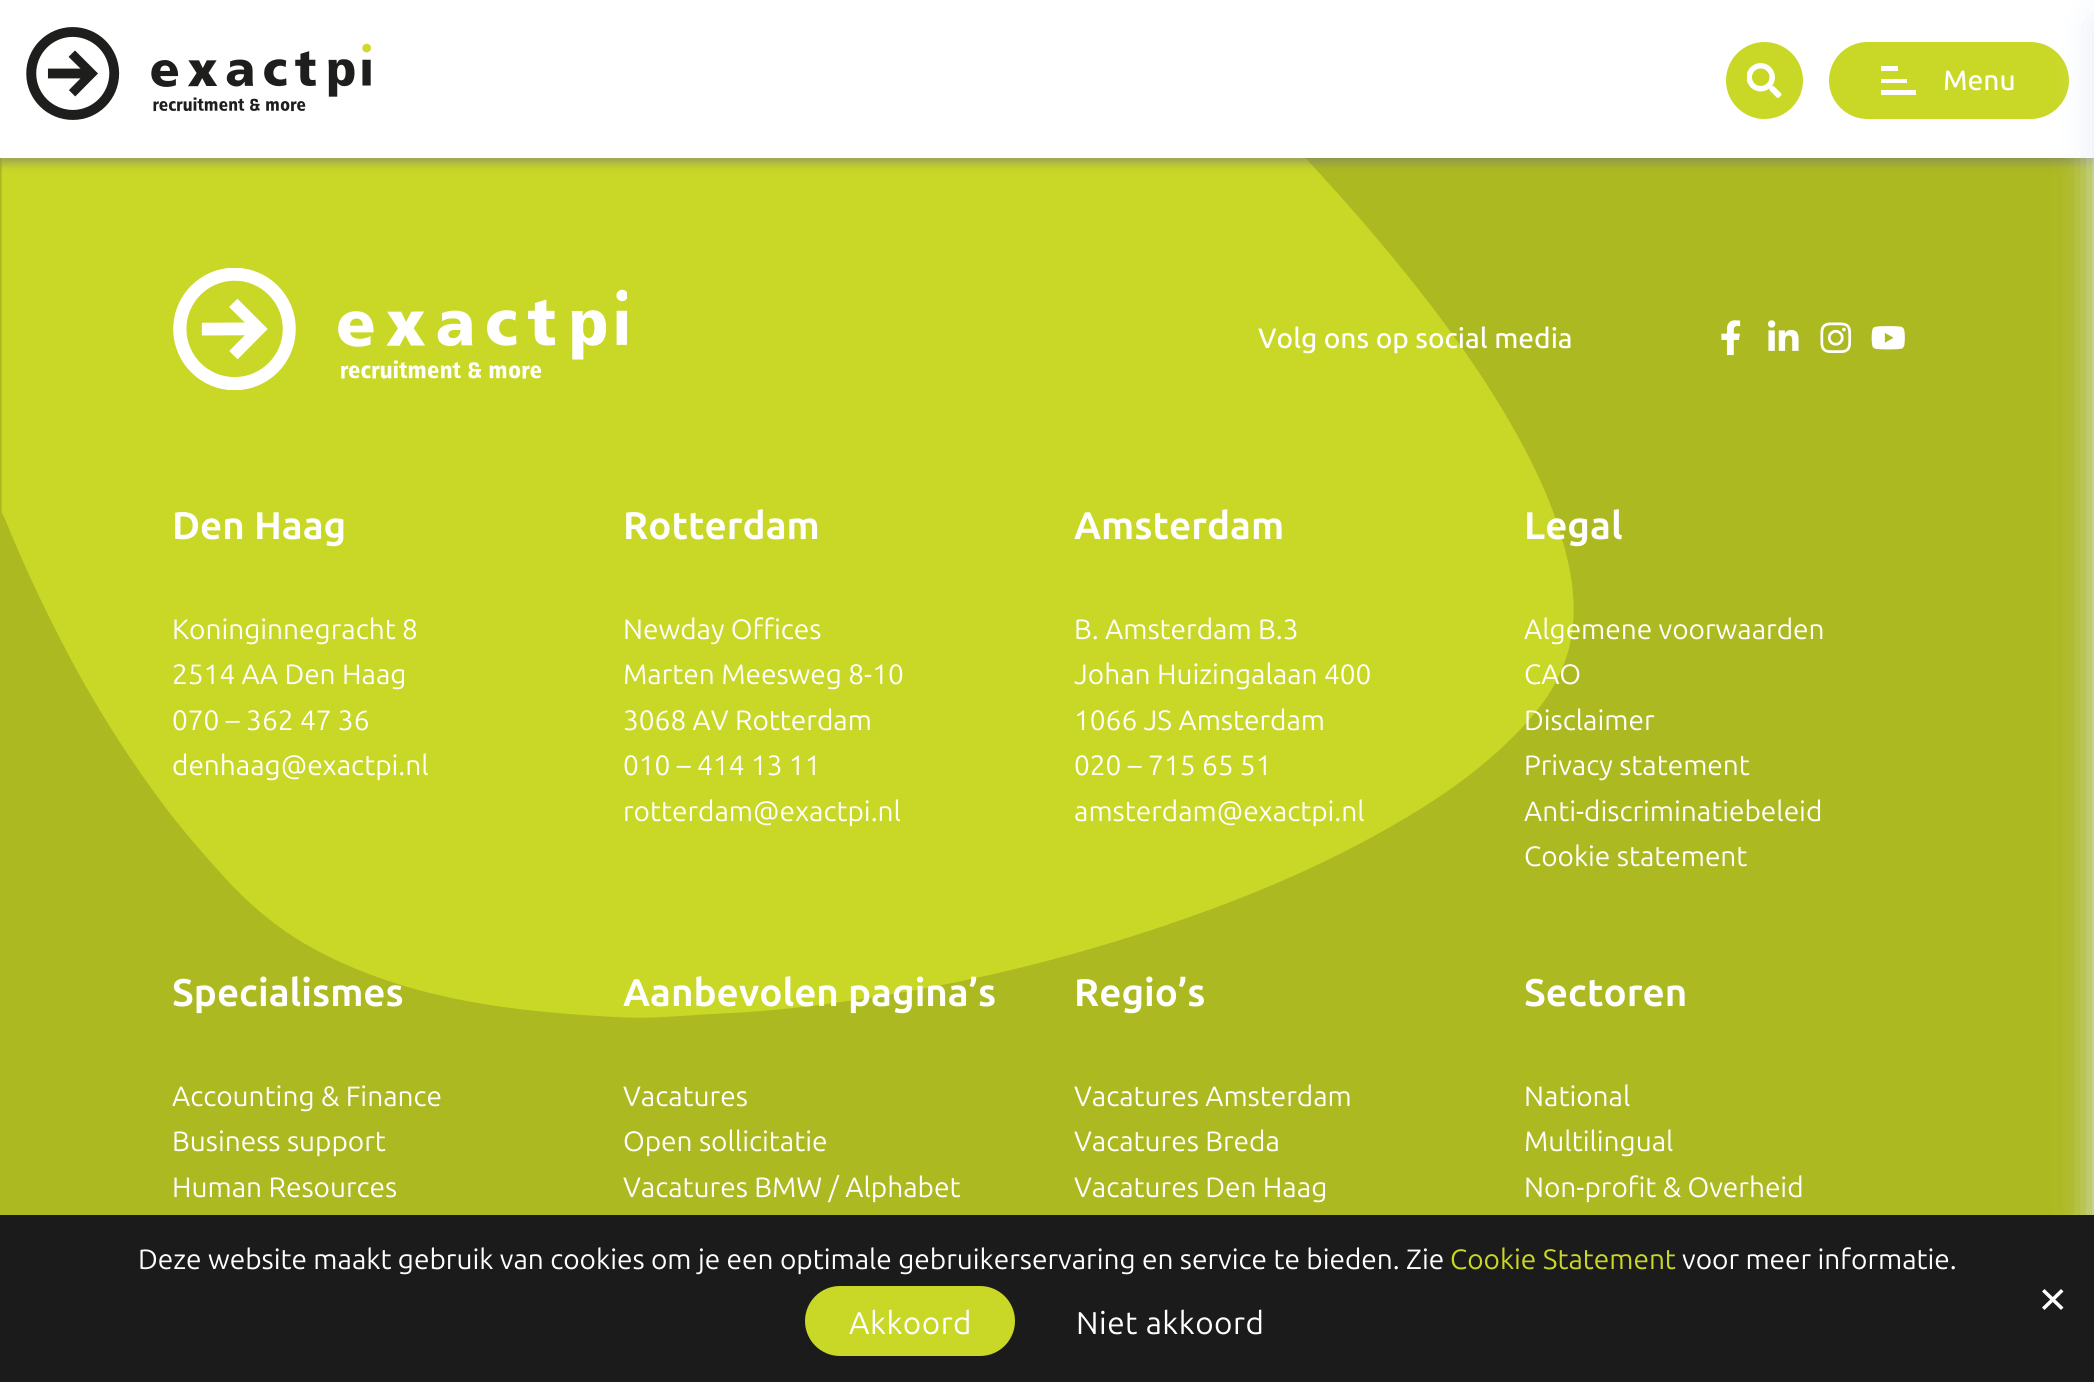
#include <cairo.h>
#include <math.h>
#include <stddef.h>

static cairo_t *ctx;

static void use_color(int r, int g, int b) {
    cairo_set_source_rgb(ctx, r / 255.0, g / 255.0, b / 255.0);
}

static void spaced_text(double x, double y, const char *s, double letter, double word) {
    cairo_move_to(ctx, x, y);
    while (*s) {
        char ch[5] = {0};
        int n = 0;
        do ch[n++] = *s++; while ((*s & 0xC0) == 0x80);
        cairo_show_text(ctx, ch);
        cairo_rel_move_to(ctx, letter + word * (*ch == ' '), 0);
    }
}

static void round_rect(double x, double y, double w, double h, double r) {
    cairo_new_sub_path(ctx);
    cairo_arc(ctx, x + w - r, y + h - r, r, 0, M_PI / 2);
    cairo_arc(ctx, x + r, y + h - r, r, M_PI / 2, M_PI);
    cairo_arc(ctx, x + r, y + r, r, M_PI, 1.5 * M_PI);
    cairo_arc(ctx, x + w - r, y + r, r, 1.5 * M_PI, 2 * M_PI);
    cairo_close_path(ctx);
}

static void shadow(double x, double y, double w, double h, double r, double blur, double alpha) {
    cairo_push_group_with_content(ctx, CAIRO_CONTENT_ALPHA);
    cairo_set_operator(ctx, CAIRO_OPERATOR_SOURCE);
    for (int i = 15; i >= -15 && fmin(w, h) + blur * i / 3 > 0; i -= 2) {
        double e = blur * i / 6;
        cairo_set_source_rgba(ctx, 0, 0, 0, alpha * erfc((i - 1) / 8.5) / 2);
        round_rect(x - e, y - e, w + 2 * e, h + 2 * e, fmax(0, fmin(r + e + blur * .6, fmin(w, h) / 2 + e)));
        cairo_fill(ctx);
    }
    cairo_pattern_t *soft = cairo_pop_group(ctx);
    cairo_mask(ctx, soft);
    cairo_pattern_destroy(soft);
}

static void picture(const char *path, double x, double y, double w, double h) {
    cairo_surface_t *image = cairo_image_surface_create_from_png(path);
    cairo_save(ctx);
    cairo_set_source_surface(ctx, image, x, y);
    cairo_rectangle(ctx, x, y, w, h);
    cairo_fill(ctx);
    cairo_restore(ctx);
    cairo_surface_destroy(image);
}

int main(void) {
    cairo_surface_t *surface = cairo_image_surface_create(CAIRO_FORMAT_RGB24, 2094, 1382);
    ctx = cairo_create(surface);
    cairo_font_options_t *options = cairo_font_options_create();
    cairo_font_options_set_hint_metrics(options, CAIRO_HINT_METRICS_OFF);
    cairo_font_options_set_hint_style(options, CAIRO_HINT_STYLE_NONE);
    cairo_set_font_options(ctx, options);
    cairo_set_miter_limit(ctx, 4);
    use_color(172, 185, 33);
    cairo_paint(ctx);
    picture("img3.png", 1, 158, 1573, 860);
    use_color(121, 121, 121);
    shadow(0, 5, 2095, 158, 0, 4.5, 0.6);
    use_color(255, 255, 255);
    cairo_rectangle(ctx, 0, 0, 2094, 158);
    cairo_fill(ctx);
    picture("img1.png", 26, 27, 345, 93);
    use_color(201, 215, 38);
    cairo_arc(ctx, 1764.5, 80.5, 38.5, 0, 2 * M_PI);
    cairo_fill(ctx);
    picture("img2.png", 1747, 63, 35, 35);
    round_rect(1829, 42, 240, 77, 38.5);
    cairo_fill(ctx);
    use_color(255, 255, 255);
    cairo_rectangle(ctx, 1881, 66, 17, 5);
    cairo_fill(ctx);
    cairo_rectangle(ctx, 1881, 79, 26, 4);
    cairo_fill(ctx);
    cairo_rectangle(ctx, 1881, 90, 35, 5);
    cairo_fill(ctx);
    cairo_select_font_face(ctx, "Ubuntu Medium", CAIRO_FONT_SLANT_NORMAL, CAIRO_FONT_WEIGHT_NORMAL);
    cairo_set_font_size(ctx, 28);
    cairo_move_to(ctx, 1943, 90);
    cairo_show_text(ctx, "Menu");
    picture("img4.png", 173, 268, 454, 122);
    cairo_move_to(ctx, 1258, 348);
    cairo_show_text(ctx, "Volg ons op social media");
    picture("img5.png", 1721, 320, 20, 35);
    picture("img6.png", 1768, 320, 31, 31);
    picture("img7.png", 1820, 322, 32, 32);
    picture("img8.png", 1871, 326, 34, 24);
    cairo_select_font_face(ctx, "Ubuntu", CAIRO_FONT_SLANT_NORMAL, CAIRO_FONT_WEIGHT_BOLD);
    cairo_set_font_size(ctx, 38.5);
    cairo_move_to(ctx, 172, 539);
    cairo_show_text(ctx, "Den Haag");
    cairo_select_font_face(ctx, "Ubuntu", CAIRO_FONT_SLANT_NORMAL, CAIRO_FONT_WEIGHT_NORMAL);
    cairo_set_font_size(ctx, 28);
    cairo_move_to(ctx, 172, 639);
    cairo_show_text(ctx, "Koninginnegracht 8");
    cairo_move_to(ctx, 172, 684);
    cairo_show_text(ctx, "2514 AA Den Haag");
    cairo_move_to(ctx, 172, 730);
    cairo_show_text(ctx, "070 – 362 47 36");
    cairo_move_to(ctx, 172, 775);
    cairo_show_text(ctx, "denhaag@exactpi.nl");
    cairo_select_font_face(ctx, "Ubuntu", CAIRO_FONT_SLANT_NORMAL, CAIRO_FONT_WEIGHT_BOLD);
    cairo_set_font_size(ctx, 38.5);
    cairo_move_to(ctx, 623, 539);
    cairo_show_text(ctx, "Rotterdam");
    cairo_select_font_face(ctx, "Ubuntu", CAIRO_FONT_SLANT_NORMAL, CAIRO_FONT_WEIGHT_NORMAL);
    cairo_set_font_size(ctx, 28);
    cairo_move_to(ctx, 623, 639);
    cairo_show_text(ctx, "Newday Offices");
    cairo_move_to(ctx, 623, 684);
    cairo_show_text(ctx, "Marten Meesweg 8-10");
    cairo_move_to(ctx, 623, 730);
    cairo_show_text(ctx, "3068 AV Rotterdam");
    cairo_move_to(ctx, 623, 775);
    cairo_show_text(ctx, "010 – 414 13 11");
    cairo_move_to(ctx, 623, 821);
    cairo_show_text(ctx, "rotterdam@exactpi.nl");
    cairo_select_font_face(ctx, "Ubuntu", CAIRO_FONT_SLANT_NORMAL, CAIRO_FONT_WEIGHT_BOLD);
    cairo_set_font_size(ctx, 38.5);
    cairo_move_to(ctx, 1074, 539);
    cairo_show_text(ctx, "Amsterdam");
    cairo_select_font_face(ctx, "Ubuntu", CAIRO_FONT_SLANT_NORMAL, CAIRO_FONT_WEIGHT_NORMAL);
    cairo_set_font_size(ctx, 28);
    cairo_move_to(ctx, 1074, 639);
    cairo_show_text(ctx, "B. Amsterdam B.3");
    cairo_move_to(ctx, 1074, 684);
    cairo_show_text(ctx, "Johan Huizingalaan 400");
    cairo_move_to(ctx, 1074, 730);
    cairo_show_text(ctx, "1066 JS Amsterdam");
    cairo_move_to(ctx, 1074, 775);
    cairo_show_text(ctx, "020 – 715 65 51");
    cairo_move_to(ctx, 1074, 821);
    cairo_show_text(ctx, "amsterdam@exactpi.nl");
    cairo_select_font_face(ctx, "Ubuntu", CAIRO_FONT_SLANT_NORMAL, CAIRO_FONT_WEIGHT_BOLD);
    cairo_set_font_size(ctx, 38.5);
    cairo_move_to(ctx, 1524, 539);
    cairo_show_text(ctx, "Legal");
    cairo_select_font_face(ctx, "Ubuntu", CAIRO_FONT_SLANT_NORMAL, CAIRO_FONT_WEIGHT_NORMAL);
    cairo_set_font_size(ctx, 28);
    cairo_move_to(ctx, 1524, 639);
    cairo_show_text(ctx, "Algemene voorwaarden");
    cairo_move_to(ctx, 1524, 684);
    cairo_show_text(ctx, "CAO");
    cairo_move_to(ctx, 1524, 730);
    cairo_show_text(ctx, "Disclaimer");
    cairo_move_to(ctx, 1524, 775);
    cairo_show_text(ctx, "Privacy statement");
    cairo_move_to(ctx, 1524, 821);
    cairo_show_text(ctx, "Anti-discriminatiebeleid");
    cairo_move_to(ctx, 1524, 866);
    cairo_show_text(ctx, "Cookie statement");
    cairo_select_font_face(ctx, "Ubuntu", CAIRO_FONT_SLANT_NORMAL, CAIRO_FONT_WEIGHT_BOLD);
    cairo_set_font_size(ctx, 38.5);
    cairo_move_to(ctx, 172, 1006);
    cairo_show_text(ctx, "Specialismes");
    cairo_select_font_face(ctx, "Ubuntu", CAIRO_FONT_SLANT_NORMAL, CAIRO_FONT_WEIGHT_NORMAL);
    cairo_set_font_size(ctx, 28);
    cairo_move_to(ctx, 172, 1106);
    cairo_show_text(ctx, "Accounting & Finance");
    cairo_move_to(ctx, 172, 1151);
    cairo_show_text(ctx, "Business support");
    cairo_move_to(ctx, 172, 1197);
    cairo_show_text(ctx, "Human Resources");
    cairo_select_font_face(ctx, "Ubuntu", CAIRO_FONT_SLANT_NORMAL, CAIRO_FONT_WEIGHT_BOLD);
    cairo_set_font_size(ctx, 38.5);
    cairo_move_to(ctx, 623, 1006);
    cairo_show_text(ctx, "Aanbevolen pagina’s");
    cairo_select_font_face(ctx, "Ubuntu", CAIRO_FONT_SLANT_NORMAL, CAIRO_FONT_WEIGHT_NORMAL);
    cairo_set_font_size(ctx, 28);
    cairo_move_to(ctx, 623, 1106);
    cairo_show_text(ctx, "Vacatures");
    cairo_move_to(ctx, 623, 1151);
    cairo_show_text(ctx, "Open sollicitatie");
    cairo_move_to(ctx, 623, 1197);
    cairo_show_text(ctx, "Vacatures BMW / Alphabet");
    cairo_select_font_face(ctx, "Ubuntu", CAIRO_FONT_SLANT_NORMAL, CAIRO_FONT_WEIGHT_BOLD);
    cairo_set_font_size(ctx, 38.5);
    cairo_move_to(ctx, 1074, 1006);
    cairo_show_text(ctx, "Regio’s");
    cairo_select_font_face(ctx, "Ubuntu", CAIRO_FONT_SLANT_NORMAL, CAIRO_FONT_WEIGHT_NORMAL);
    cairo_set_font_size(ctx, 28);
    cairo_move_to(ctx, 1074, 1106);
    cairo_show_text(ctx, "Vacatures Amsterdam");
    cairo_move_to(ctx, 1074, 1151);
    cairo_show_text(ctx, "Vacatures Breda");
    cairo_move_to(ctx, 1074, 1197);
    cairo_show_text(ctx, "Vacatures Den Haag");
    cairo_select_font_face(ctx, "Ubuntu", CAIRO_FONT_SLANT_NORMAL, CAIRO_FONT_WEIGHT_BOLD);
    cairo_set_font_size(ctx, 38.5);
    cairo_move_to(ctx, 1524, 1006);
    cairo_show_text(ctx, "Sectoren");
    cairo_select_font_face(ctx, "Ubuntu", CAIRO_FONT_SLANT_NORMAL, CAIRO_FONT_WEIGHT_NORMAL);
    cairo_set_font_size(ctx, 28);
    cairo_move_to(ctx, 1524, 1106);
    cairo_show_text(ctx, "National");
    cairo_move_to(ctx, 1524, 1151);
    cairo_show_text(ctx, "Multilingual");
    cairo_move_to(ctx, 1524, 1197);
    cairo_show_text(ctx, "Non-profit & Overheid");
    use_color(224, 233, 245);
    shadow(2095, 23, 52, 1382, 0, 17.5, 1);
    use_color(27, 27, 27);
    cairo_rectangle(ctx, 0, 1215, 2094, 167);
    cairo_fill(ctx);
    use_color(255, 255, 255);
    cairo_move_to(ctx, 138, 1269);
    cairo_show_text(ctx, "Deze website maakt gebruik van cookies om je een optimale gebruikerservaring en service te bieden. Zie");
    use_color(201, 215, 38);
    cairo_move_to(ctx, 1450, 1269);
    cairo_show_text(ctx, "Cookie Statement");
    use_color(255, 255, 255);
    cairo_move_to(ctx, 1682, 1269);
    cairo_show_text(ctx, "voor meer informatie.");
    cairo_new_path(ctx);
    cairo_move_to(ctx, 2061, 1289);
    cairo_line_to(ctx, 2063.5, 1291.5);
    cairo_line_to(ctx, 2044.5, 1310);
    cairo_line_to(ctx, 2042, 1307.5);
    cairo_close_path(ctx);
    cairo_fill(ctx);
    cairo_new_path(ctx);
    cairo_move_to(ctx, 2042, 1291.5);
    cairo_line_to(ctx, 2044.5, 1289);
    cairo_line_to(ctx, 2063.5, 1307.5);
    cairo_line_to(ctx, 2061, 1310);
    cairo_close_path(ctx);
    cairo_fill(ctx);
    use_color(201, 215, 38);
    round_rect(805, 1286, 210, 70, 35);
    cairo_fill(ctx);
    cairo_set_font_size(ctx, 31.5);
    use_color(255, 255, 255);
    spaced_text(849, 1334, "Akkoord", 0.5, 0);
    spaced_text(1076, 1334, "Niet akkoord", 0.5, 0);
    cairo_surface_write_to_png(surface, "result.png");
    cairo_font_options_destroy(options);
    cairo_destroy(ctx);
    cairo_surface_destroy(surface);
    return 0;
}
